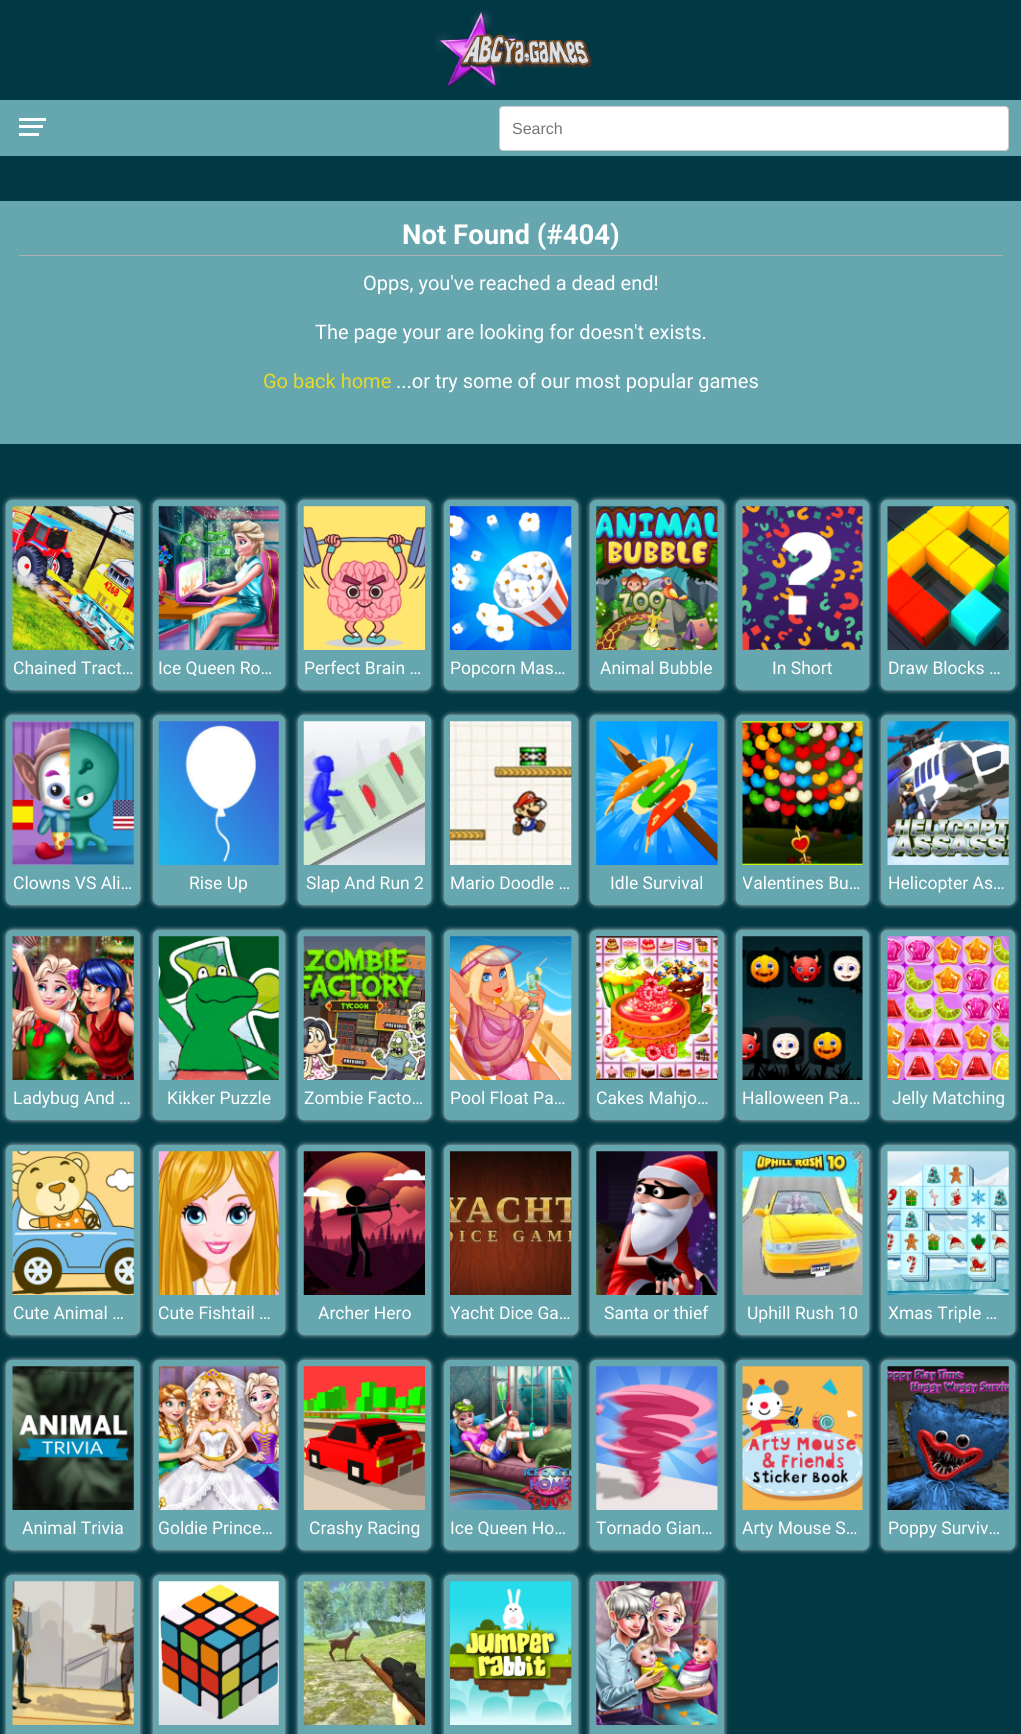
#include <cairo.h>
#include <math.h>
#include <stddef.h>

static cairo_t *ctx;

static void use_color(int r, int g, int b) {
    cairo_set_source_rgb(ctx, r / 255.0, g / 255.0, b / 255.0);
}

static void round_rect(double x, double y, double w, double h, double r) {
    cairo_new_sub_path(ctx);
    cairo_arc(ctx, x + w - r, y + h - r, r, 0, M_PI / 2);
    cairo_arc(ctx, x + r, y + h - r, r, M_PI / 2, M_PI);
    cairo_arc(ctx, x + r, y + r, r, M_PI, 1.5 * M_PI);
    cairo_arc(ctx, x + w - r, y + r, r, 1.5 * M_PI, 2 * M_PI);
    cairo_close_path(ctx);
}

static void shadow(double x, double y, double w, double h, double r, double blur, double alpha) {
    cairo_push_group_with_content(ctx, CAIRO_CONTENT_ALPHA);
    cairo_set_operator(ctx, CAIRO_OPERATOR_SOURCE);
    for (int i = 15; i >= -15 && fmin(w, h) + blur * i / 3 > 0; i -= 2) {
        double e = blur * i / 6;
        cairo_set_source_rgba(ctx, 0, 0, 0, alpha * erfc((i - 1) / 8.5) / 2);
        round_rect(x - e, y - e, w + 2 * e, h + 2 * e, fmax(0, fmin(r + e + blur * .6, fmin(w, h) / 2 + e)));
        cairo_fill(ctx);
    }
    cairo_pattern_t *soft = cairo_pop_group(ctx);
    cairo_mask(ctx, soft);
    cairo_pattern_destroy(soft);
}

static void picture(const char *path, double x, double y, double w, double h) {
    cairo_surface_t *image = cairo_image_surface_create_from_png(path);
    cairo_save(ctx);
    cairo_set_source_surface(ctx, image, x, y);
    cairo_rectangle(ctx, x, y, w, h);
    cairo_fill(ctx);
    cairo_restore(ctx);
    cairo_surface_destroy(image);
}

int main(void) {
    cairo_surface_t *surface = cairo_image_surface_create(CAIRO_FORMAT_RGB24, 1021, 1734);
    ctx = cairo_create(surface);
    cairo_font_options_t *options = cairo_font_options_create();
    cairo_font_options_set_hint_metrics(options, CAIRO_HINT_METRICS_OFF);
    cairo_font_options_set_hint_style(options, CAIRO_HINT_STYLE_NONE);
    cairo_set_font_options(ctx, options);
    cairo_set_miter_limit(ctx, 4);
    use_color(0, 56, 68);
    cairo_paint(ctx);
    use_color(102, 166, 175);
    cairo_rectangle(ctx, 0, 100, 1021, 56);
    cairo_fill(ctx);
    use_color(255, 255, 255);
    cairo_rectangle(ctx, 19, 118, 27, 3);
    cairo_fill(ctx);
    cairo_rectangle(ctx, 19, 125, 24, 3);
    cairo_fill(ctx);
    cairo_rectangle(ctx, 19, 133, 20, 3);
    cairo_fill(ctx);
    picture("img1.png", 432, 9, 161, 81);
    round_rect(499.5, 106.5, 509, 44, 3.5);
    cairo_fill_preserve(ctx);
    use_color(204, 204, 204);
    cairo_set_line_width(ctx, 1);
    cairo_stroke(ctx);
    cairo_select_font_face(ctx, "Liberation Sans", CAIRO_FONT_SLANT_NORMAL, CAIRO_FONT_WEIGHT_NORMAL);
    cairo_set_font_size(ctx, 16);
    use_color(117, 117, 117);
    cairo_move_to(ctx, 512, 134);
    cairo_show_text(ctx, "Search");
    use_color(102, 166, 175);
    cairo_rectangle(ctx, 0, 201, 1021, 243);
    cairo_fill(ctx);
    use_color(175, 175, 175);
    cairo_rectangle(ctx, 19, 255, 984, 1);
    cairo_fill(ctx);
    cairo_select_font_face(ctx, "Roboto", CAIRO_FONT_SLANT_NORMAL, CAIRO_FONT_WEIGHT_BOLD);
    cairo_set_font_size(ctx, 27.5);
    use_color(255, 255, 255);
    cairo_move_to(ctx, 402, 244);
    cairo_show_text(ctx, "Not Found (#404)");
    cairo_select_font_face(ctx, "Roboto", CAIRO_FONT_SLANT_NORMAL, CAIRO_FONT_WEIGHT_NORMAL);
    cairo_set_font_size(ctx, 20);
    cairo_move_to(ctx, 363, 290);
    cairo_show_text(ctx, "Opps, you've reached a dead end!");
    cairo_move_to(ctx, 315, 339);
    cairo_show_text(ctx, "The page your are looking for doesn't exists.");
    use_color(231, 216, 37);
    cairo_move_to(ctx, 263, 388);
    cairo_show_text(ctx, "Go back home");
    use_color(255, 255, 255);
    cairo_move_to(ctx, 396, 388);
    cairo_show_text(ctx, "...or try some of our most popular games");
    use_color(204, 204, 204);
    shadow(6, 500, 134, 190, 6, 2.5, 1);
    use_color(102, 166, 175);
    round_rect(6, 500, 134, 190, 6);
    cairo_fill(ctx);
    picture("img2.png", 12, 506, 122, 144);
    cairo_set_font_size(ctx, 17.5);
    use_color(255, 255, 255);
    cairo_move_to(ctx, 13, 674);
    cairo_show_text(ctx, "Chained Tract…");
    use_color(204, 204, 204);
    shadow(153, 500, 132, 190, 6, 2.5, 1);
    use_color(102, 166, 175);
    round_rect(153, 500, 132, 190, 6);
    cairo_fill(ctx);
    picture("img3.png", 158, 506, 121, 144);
    use_color(255, 255, 255);
    cairo_move_to(ctx, 158, 674);
    cairo_show_text(ctx, "Ice Queen Ro…");
    use_color(204, 204, 204);
    shadow(298, 500, 133, 190, 6, 2.5, 1);
    use_color(102, 166, 175);
    round_rect(298, 500, 133, 190, 6);
    cairo_fill(ctx);
    picture("img4.png", 303, 506, 122, 144);
    use_color(255, 255, 255);
    cairo_move_to(ctx, 304, 674);
    cairo_show_text(ctx, "Perfect Brain …");
    use_color(204, 204, 204);
    shadow(444, 500, 134, 190, 6, 2.5, 1);
    use_color(102, 166, 175);
    round_rect(444, 500, 134, 190, 6);
    cairo_fill(ctx);
    picture("img5.png", 450, 506, 122, 144);
    use_color(255, 255, 255);
    cairo_move_to(ctx, 450, 674);
    cairo_show_text(ctx, "Popcorn Mas…");
    use_color(204, 204, 204);
    shadow(590, 500, 134, 190, 6, 2.5, 1);
    use_color(102, 166, 175);
    round_rect(590, 500, 134, 190, 6);
    cairo_fill(ctx);
    picture("img6.png", 596, 506, 122, 144);
    use_color(255, 255, 255);
    cairo_move_to(ctx, 600, 674);
    cairo_show_text(ctx, "Animal Bubble");
    use_color(204, 204, 204);
    shadow(736, 500, 133, 190, 6, 2.5, 1);
    use_color(102, 166, 175);
    round_rect(736, 500, 133, 190, 6);
    cairo_fill(ctx);
    picture("img7.png", 742, 506, 121, 144);
    use_color(255, 255, 255);
    cairo_move_to(ctx, 772, 674);
    cairo_show_text(ctx, "In Short");
    use_color(204, 204, 204);
    shadow(881, 500, 134, 190, 6, 2.5, 1);
    use_color(102, 166, 175);
    round_rect(881, 500, 134, 190, 6);
    cairo_fill(ctx);
    picture("img8.png", 887, 506, 122, 144);
    use_color(255, 255, 255);
    cairo_move_to(ctx, 888, 674);
    cairo_show_text(ctx, "Draw Blocks …");
    use_color(204, 204, 204);
    shadow(6, 715, 134, 190, 6, 2.5, 1);
    use_color(102, 166, 175);
    round_rect(6, 715, 134, 190, 6);
    cairo_fill(ctx);
    picture("img9.png", 12, 721, 122, 144);
    use_color(255, 255, 255);
    cairo_move_to(ctx, 13, 889);
    cairo_show_text(ctx, "Clowns VS Ali…");
    use_color(204, 204, 204);
    shadow(153, 715, 132, 190, 6, 2.5, 1);
    use_color(102, 166, 175);
    round_rect(153, 715, 132, 190, 6);
    cairo_fill(ctx);
    picture("img10.png", 158, 721, 121, 144);
    use_color(255, 255, 255);
    cairo_move_to(ctx, 189, 889);
    cairo_show_text(ctx, "Rise Up");
    use_color(204, 204, 204);
    shadow(298, 715, 133, 190, 6, 2.5, 1);
    use_color(102, 166, 175);
    round_rect(298, 715, 133, 190, 6);
    cairo_fill(ctx);
    picture("img11.png", 303, 721, 122, 144);
    use_color(255, 255, 255);
    cairo_move_to(ctx, 306, 889);
    cairo_show_text(ctx, "Slap And Run 2");
    use_color(204, 204, 204);
    shadow(444, 715, 134, 190, 6, 2.5, 1);
    use_color(102, 166, 175);
    round_rect(444, 715, 134, 190, 6);
    cairo_fill(ctx);
    picture("img12.png", 450, 721, 122, 144);
    use_color(255, 255, 255);
    cairo_move_to(ctx, 450, 889);
    cairo_show_text(ctx, "Mario Doodle …");
    use_color(204, 204, 204);
    shadow(590, 715, 134, 190, 6, 2.5, 1);
    use_color(102, 166, 175);
    round_rect(590, 715, 134, 190, 6);
    cairo_fill(ctx);
    picture("img13.png", 596, 721, 122, 144);
    use_color(255, 255, 255);
    cairo_move_to(ctx, 610, 889);
    cairo_show_text(ctx, "Idle Survival");
    use_color(204, 204, 204);
    shadow(736, 715, 133, 190, 6, 2.5, 1);
    use_color(102, 166, 175);
    round_rect(736, 715, 133, 190, 6);
    cairo_fill(ctx);
    picture("img14.png", 742, 721, 121, 144);
    cairo_save(ctx);
    cairo_rectangle(ctx, 743, 865, 120, 34);
    cairo_clip(ctx);
    use_color(255, 255, 255);
    cairo_move_to(ctx, 742, 889);
    cairo_show_text(ctx, "Valentines Bu…");
    cairo_restore(ctx);
    use_color(204, 204, 204);
    shadow(881, 715, 134, 190, 6, 2.5, 1);
    use_color(102, 166, 175);
    round_rect(881, 715, 134, 190, 6);
    cairo_fill(ctx);
    picture("img15.png", 887, 721, 122, 144);
    use_color(255, 255, 255);
    cairo_move_to(ctx, 888, 889);
    cairo_show_text(ctx, "Helicopter As…");
    use_color(204, 204, 204);
    shadow(6, 930, 134, 190, 6, 2.5, 1);
    use_color(102, 166, 175);
    round_rect(6, 930, 134, 190, 6);
    cairo_fill(ctx);
    picture("img16.png", 12, 936, 122, 144);
    use_color(255, 255, 255);
    cairo_move_to(ctx, 13, 1104);
    cairo_show_text(ctx, "Ladybug And …");
    use_color(204, 204, 204);
    shadow(153, 930, 132, 190, 6, 2.5, 1);
    use_color(102, 166, 175);
    round_rect(153, 930, 132, 190, 6);
    cairo_fill(ctx);
    picture("img17.png", 158, 936, 121, 144);
    use_color(255, 255, 255);
    cairo_move_to(ctx, 167, 1104);
    cairo_show_text(ctx, "Kikker Puzzle");
    use_color(204, 204, 204);
    shadow(298, 930, 133, 190, 6, 2.5, 1);
    use_color(102, 166, 175);
    round_rect(298, 930, 133, 190, 6);
    cairo_fill(ctx);
    picture("img18.png", 303, 936, 122, 144);
    use_color(255, 255, 255);
    cairo_move_to(ctx, 304, 1104);
    cairo_show_text(ctx, "Zombie Facto…");
    use_color(204, 204, 204);
    shadow(444, 930, 134, 190, 6, 2.5, 1);
    use_color(102, 166, 175);
    round_rect(444, 930, 134, 190, 6);
    cairo_fill(ctx);
    picture("img19.png", 450, 936, 122, 144);
    use_color(255, 255, 255);
    cairo_move_to(ctx, 450, 1104);
    cairo_show_text(ctx, "Pool Float Pa…");
    use_color(204, 204, 204);
    shadow(590, 930, 134, 190, 6, 2.5, 1);
    use_color(102, 166, 175);
    round_rect(590, 930, 134, 190, 6);
    cairo_fill(ctx);
    picture("img20.png", 596, 936, 122, 144);
    use_color(255, 255, 255);
    cairo_move_to(ctx, 596, 1104);
    cairo_show_text(ctx, "Cakes Mahjo…");
    use_color(204, 204, 204);
    shadow(736, 930, 133, 190, 6, 2.5, 1);
    use_color(102, 166, 175);
    round_rect(736, 930, 133, 190, 6);
    cairo_fill(ctx);
    picture("img21.png", 742, 936, 121, 144);
    use_color(255, 255, 255);
    cairo_move_to(ctx, 742, 1104);
    cairo_show_text(ctx, "Halloween Pa…");
    use_color(204, 204, 204);
    shadow(881, 930, 134, 190, 6, 2.5, 1);
    use_color(102, 166, 175);
    round_rect(881, 930, 134, 190, 6);
    cairo_fill(ctx);
    picture("img22.png", 887, 936, 122, 144);
    use_color(255, 255, 255);
    cairo_move_to(ctx, 892, 1104);
    cairo_show_text(ctx, "Jelly Matching");
    use_color(204, 204, 204);
    shadow(6, 1145, 134, 190, 6, 2.5, 1);
    use_color(102, 166, 175);
    round_rect(6, 1145, 134, 190, 6);
    cairo_fill(ctx);
    picture("img23.png", 12, 1151, 122, 144);
    use_color(255, 255, 255);
    cairo_move_to(ctx, 13, 1319);
    cairo_show_text(ctx, "Cute Animal …");
    use_color(204, 204, 204);
    shadow(153, 1145, 132, 190, 6, 2.5, 1);
    use_color(102, 166, 175);
    round_rect(153, 1145, 132, 190, 6);
    cairo_fill(ctx);
    picture("img24.png", 158, 1151, 121, 144);
    use_color(255, 255, 255);
    cairo_move_to(ctx, 158, 1319);
    cairo_show_text(ctx, "Cute Fishtail …");
    use_color(204, 204, 204);
    shadow(298, 1145, 133, 190, 6, 2.5, 1);
    use_color(102, 166, 175);
    round_rect(298, 1145, 133, 190, 6);
    cairo_fill(ctx);
    picture("img25.png", 303, 1151, 122, 144);
    use_color(255, 255, 255);
    cairo_move_to(ctx, 318, 1319);
    cairo_show_text(ctx, "Archer Hero");
    use_color(204, 204, 204);
    shadow(444, 1145, 134, 190, 6, 2.5, 1);
    use_color(102, 166, 175);
    round_rect(444, 1145, 134, 190, 6);
    cairo_fill(ctx);
    picture("img26.png", 450, 1151, 122, 144);
    use_color(255, 255, 255);
    cairo_move_to(ctx, 450, 1319);
    cairo_show_text(ctx, "Yacht Dice Ga…");
    use_color(204, 204, 204);
    shadow(590, 1145, 134, 190, 6, 2.5, 1);
    use_color(102, 166, 175);
    round_rect(590, 1145, 134, 190, 6);
    cairo_fill(ctx);
    picture("img27.png", 596, 1151, 122, 144);
    use_color(255, 255, 255);
    cairo_move_to(ctx, 604, 1319);
    cairo_show_text(ctx, "Santa or thief");
    use_color(204, 204, 204);
    shadow(736, 1145, 133, 190, 6, 2.5, 1);
    use_color(102, 166, 175);
    round_rect(736, 1145, 133, 190, 6);
    cairo_fill(ctx);
    picture("img28.png", 742, 1151, 121, 144);
    use_color(255, 255, 255);
    cairo_move_to(ctx, 747, 1319);
    cairo_show_text(ctx, "Uphill Rush 10");
    use_color(204, 204, 204);
    shadow(881, 1145, 134, 190, 6, 2.5, 1);
    use_color(102, 166, 175);
    round_rect(881, 1145, 134, 190, 6);
    cairo_fill(ctx);
    picture("img29.png", 887, 1151, 122, 144);
    use_color(255, 255, 255);
    cairo_move_to(ctx, 888, 1319);
    cairo_show_text(ctx, "Xmas Triple …");
    use_color(204, 204, 204);
    shadow(6, 1360, 134, 190, 6, 2.5, 1);
    use_color(102, 166, 175);
    round_rect(6, 1360, 134, 190, 6);
    cairo_fill(ctx);
    picture("img30.png", 12, 1366, 122, 144);
    use_color(255, 255, 255);
    cairo_move_to(ctx, 22, 1534);
    cairo_show_text(ctx, "Animal Trivia");
    use_color(204, 204, 204);
    shadow(153, 1360, 132, 190, 6, 2.5, 1);
    use_color(102, 166, 175);
    round_rect(153, 1360, 132, 190, 6);
    cairo_fill(ctx);
    picture("img31.png", 158, 1366, 121, 144);
    use_color(255, 255, 255);
    cairo_move_to(ctx, 158, 1534);
    cairo_show_text(ctx, "Goldie Prince…");
    use_color(204, 204, 204);
    shadow(298, 1360, 133, 190, 6, 2.5, 1);
    use_color(102, 166, 175);
    round_rect(298, 1360, 133, 190, 6);
    cairo_fill(ctx);
    picture("img32.png", 303, 1366, 122, 144);
    use_color(255, 255, 255);
    cairo_move_to(ctx, 309, 1534);
    cairo_show_text(ctx, "Crashy Racing");
    use_color(204, 204, 204);
    shadow(444, 1360, 134, 190, 6, 2.5, 1);
    use_color(102, 166, 175);
    round_rect(444, 1360, 134, 190, 6);
    cairo_fill(ctx);
    picture("img33.png", 450, 1366, 122, 144);
    use_color(255, 255, 255);
    cairo_move_to(ctx, 450, 1534);
    cairo_show_text(ctx, "Ice Queen Ho…");
    use_color(204, 204, 204);
    shadow(590, 1360, 134, 190, 6, 2.5, 1);
    use_color(102, 166, 175);
    round_rect(590, 1360, 134, 190, 6);
    cairo_fill(ctx);
    picture("img34.png", 596, 1366, 122, 144);
    use_color(255, 255, 255);
    cairo_move_to(ctx, 596, 1534);
    cairo_show_text(ctx, "Tornado Gian…");
    use_color(204, 204, 204);
    shadow(736, 1360, 133, 190, 6, 2.5, 1);
    use_color(102, 166, 175);
    round_rect(736, 1360, 133, 190, 6);
    cairo_fill(ctx);
    picture("img35.png", 742, 1366, 121, 144);
    use_color(255, 255, 255);
    cairo_move_to(ctx, 742, 1534);
    cairo_show_text(ctx, "Arty Mouse S…");
    use_color(204, 204, 204);
    shadow(881, 1360, 134, 190, 6, 2.5, 1);
    use_color(102, 166, 175);
    round_rect(881, 1360, 134, 190, 6);
    cairo_fill(ctx);
    picture("img36.png", 887, 1366, 122, 144);
    use_color(255, 255, 255);
    cairo_move_to(ctx, 888, 1534);
    cairo_show_text(ctx, "Poppy Surviv…");
    use_color(204, 204, 204);
    shadow(6, 1575, 134, 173, 6, 2.5, 1);
    use_color(102, 166, 175);
    round_rect(6, 1575, 134, 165, 6);
    cairo_fill(ctx);
    picture("img37.png", 12, 1581, 122, 144);
    use_color(204, 204, 204);
    shadow(153, 1575, 132, 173, 6, 2.5, 1);
    use_color(102, 166, 175);
    round_rect(153, 1575, 132, 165, 6);
    cairo_fill(ctx);
    picture("img38.png", 158, 1581, 121, 144);
    use_color(204, 204, 204);
    shadow(298, 1575, 133, 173, 6, 2.5, 1);
    use_color(102, 166, 175);
    round_rect(298, 1575, 133, 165, 6);
    cairo_fill(ctx);
    picture("img39.png", 303, 1581, 122, 144);
    use_color(204, 204, 204);
    shadow(444, 1575, 134, 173, 6, 2.5, 1);
    use_color(102, 166, 175);
    round_rect(444, 1575, 134, 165, 6);
    cairo_fill(ctx);
    picture("img40.png", 450, 1581, 122, 144);
    use_color(204, 204, 204);
    shadow(590, 1575, 134, 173, 6, 2.5, 1);
    use_color(102, 166, 175);
    round_rect(590, 1575, 134, 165, 6);
    cairo_fill(ctx);
    picture("img41.png", 596, 1581, 122, 144);
    cairo_surface_write_to_png(surface, "result.png");
    cairo_font_options_destroy(options);
    cairo_destroy(ctx);
    cairo_surface_destroy(surface);
    return 0;
}
